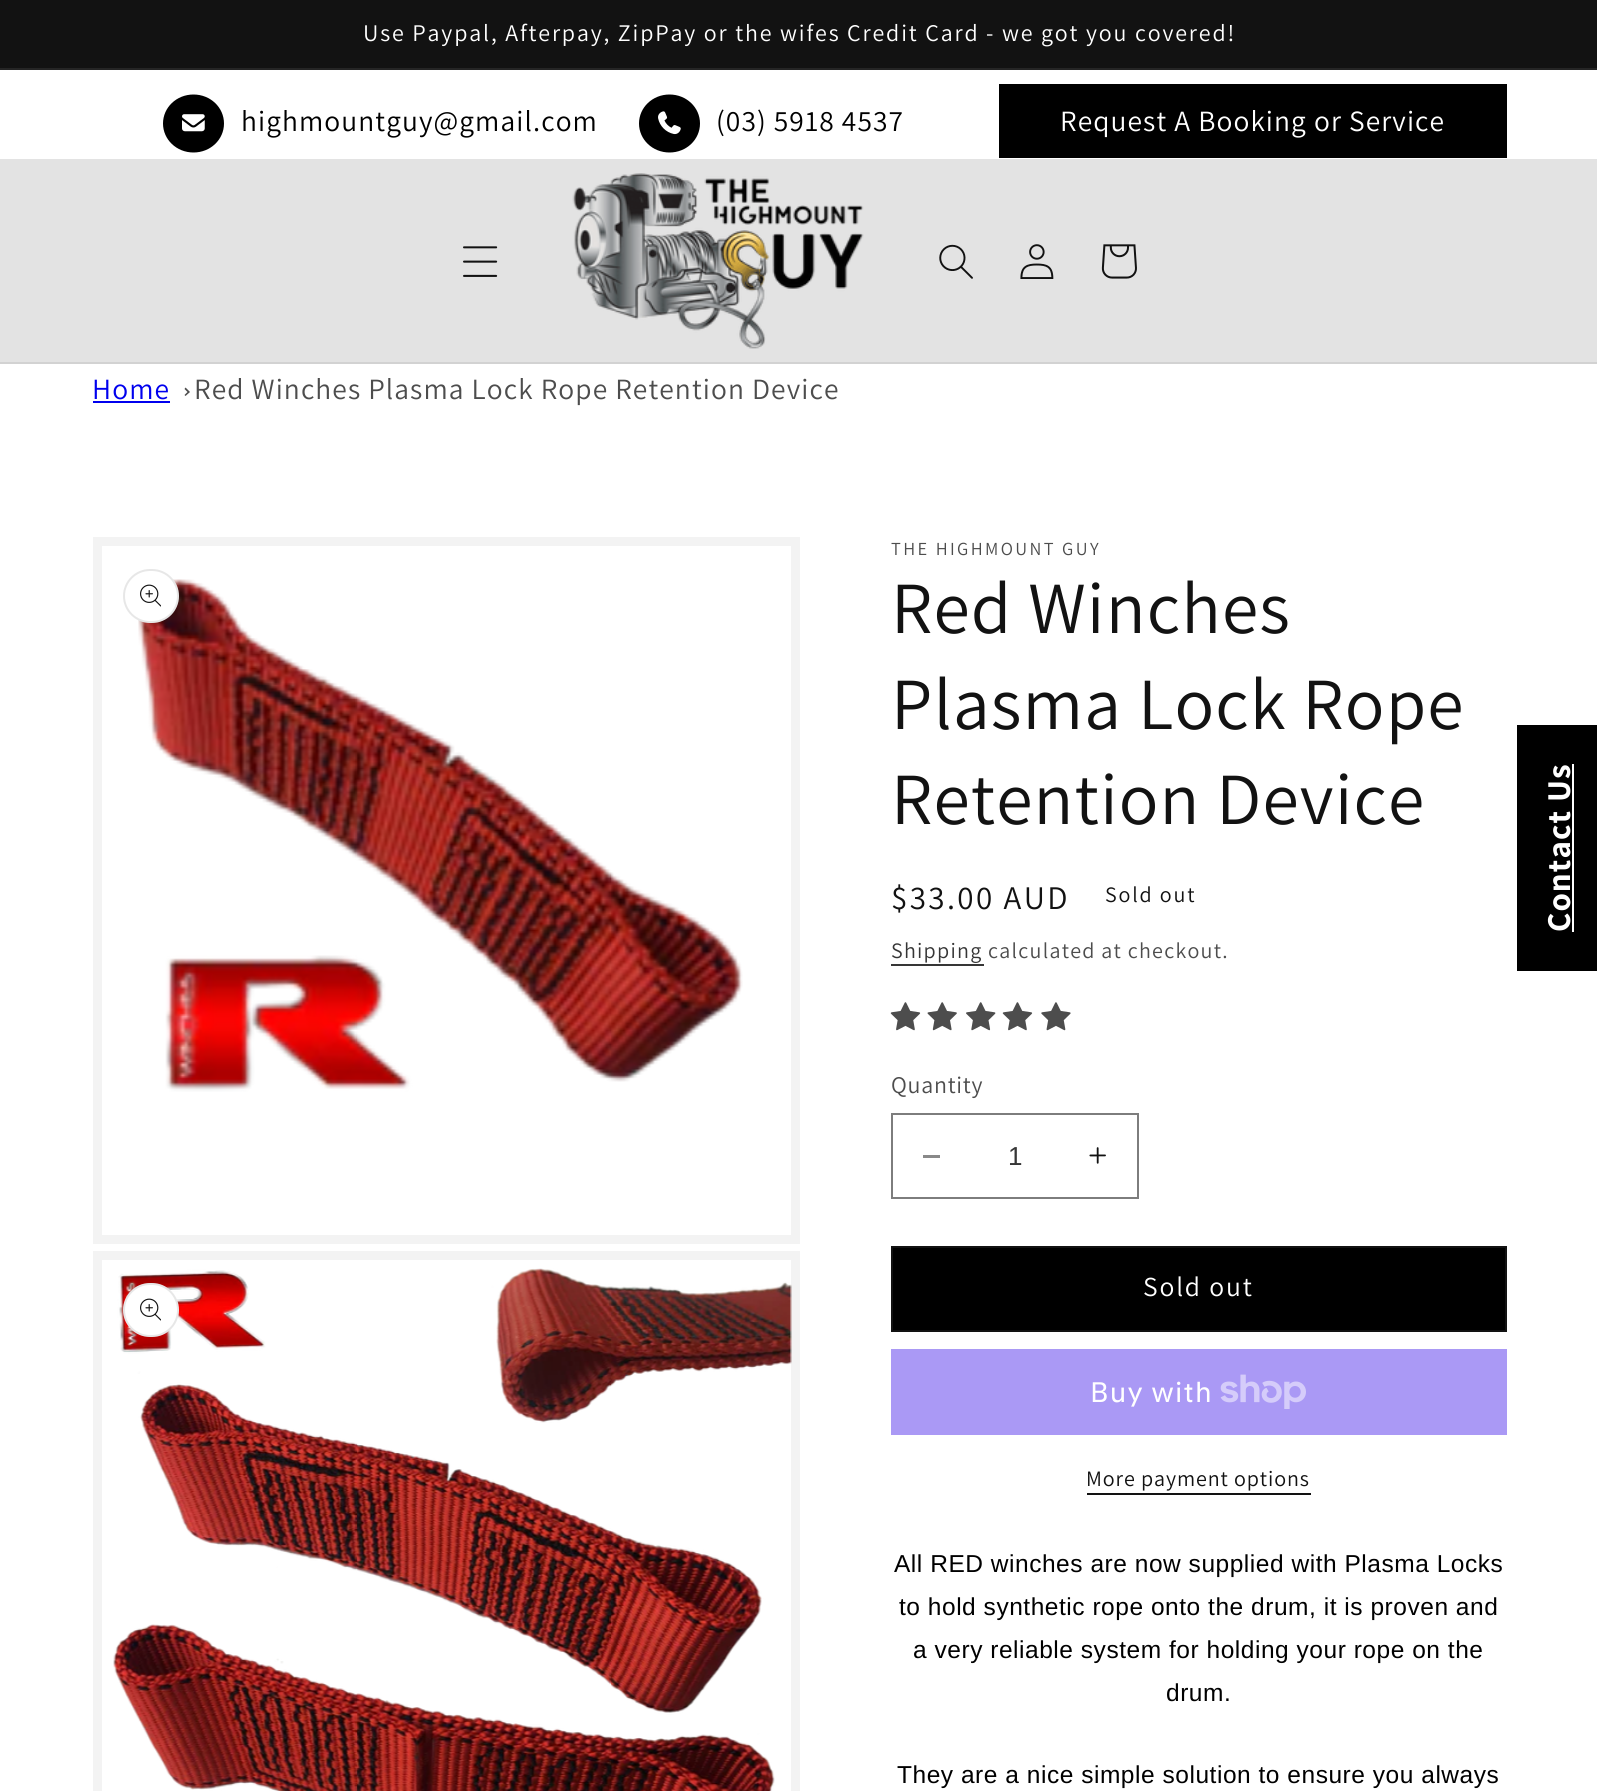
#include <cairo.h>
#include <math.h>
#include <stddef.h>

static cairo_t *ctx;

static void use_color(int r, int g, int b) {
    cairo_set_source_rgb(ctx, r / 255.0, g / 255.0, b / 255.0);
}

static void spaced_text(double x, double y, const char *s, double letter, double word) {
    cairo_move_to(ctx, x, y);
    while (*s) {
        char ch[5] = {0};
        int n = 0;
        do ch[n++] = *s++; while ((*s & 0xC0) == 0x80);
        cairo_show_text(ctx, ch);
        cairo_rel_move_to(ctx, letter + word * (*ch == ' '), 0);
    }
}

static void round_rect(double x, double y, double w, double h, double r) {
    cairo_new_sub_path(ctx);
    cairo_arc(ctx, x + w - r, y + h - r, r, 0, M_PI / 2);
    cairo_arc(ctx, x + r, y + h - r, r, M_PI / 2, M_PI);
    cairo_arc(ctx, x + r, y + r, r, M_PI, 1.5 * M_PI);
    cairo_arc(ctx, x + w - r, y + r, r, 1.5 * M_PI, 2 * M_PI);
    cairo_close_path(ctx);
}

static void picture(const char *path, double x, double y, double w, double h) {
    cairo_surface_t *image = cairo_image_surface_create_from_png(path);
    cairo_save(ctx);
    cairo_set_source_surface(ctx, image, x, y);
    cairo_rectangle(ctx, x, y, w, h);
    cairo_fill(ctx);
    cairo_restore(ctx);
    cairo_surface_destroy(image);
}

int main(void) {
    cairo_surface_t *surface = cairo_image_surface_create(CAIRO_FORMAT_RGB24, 1597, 1791);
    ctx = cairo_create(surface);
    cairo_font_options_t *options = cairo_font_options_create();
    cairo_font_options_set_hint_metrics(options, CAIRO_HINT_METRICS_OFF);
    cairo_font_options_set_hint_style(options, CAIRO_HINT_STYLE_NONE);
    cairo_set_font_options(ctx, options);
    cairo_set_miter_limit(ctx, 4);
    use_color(255, 255, 255);
    cairo_paint(ctx);
    use_color(18, 18, 18);
    cairo_rectangle(ctx, 0, 0, 1597, 68);
    cairo_fill(ctx);
    use_color(37, 37, 37);
    cairo_rectangle(ctx, 0, 68, 1597, 2);
    cairo_fill(ctx);
    cairo_select_font_face(ctx, "Assistant", CAIRO_FONT_SLANT_NORMAL, CAIRO_FONT_WEIGHT_NORMAL);
    cairo_set_font_size(ctx, 23.9);
    use_color(255, 255, 255);
    spaced_text(363, 41, "Use Paypal, Afterpay, ZipPay or the wifes Credit Card - we got you covered!", 1.85, 0);
    use_color(0, 0, 0);
    cairo_new_path(ctx);
    cairo_move_to(ctx, 193.5, 94.5);
    cairo_curve_to(ctx, 210.5, 94.5, 224, 107.5, 224, 123.5);
    cairo_curve_to(ctx, 224, 139.5, 210.5, 152.5, 193.5, 152.5);
    cairo_curve_to(ctx, 176.5, 152.5, 163, 139.5, 163, 123.5);
    cairo_curve_to(ctx, 163, 107.5, 176.5, 94.5, 193.5, 94.5);
    cairo_close_path(ctx);
    cairo_fill(ctx);
    picture("img1.png", 182, 114, 23, 18);
    cairo_set_font_size(ctx, 29.4);
    spaced_text(241, 131, "highmountguy@gmail.com", 1.1, 0);
    cairo_new_path(ctx);
    cairo_move_to(ctx, 669.5, 94.5);
    cairo_curve_to(ctx, 686.5, 94.5, 700, 107.5, 700, 123.5);
    cairo_curve_to(ctx, 700, 139.5, 686.5, 152.5, 669.5, 152.5);
    cairo_curve_to(ctx, 652.5, 152.5, 639, 139.5, 639, 123.5);
    cairo_curve_to(ctx, 639, 107.5, 652.5, 94.5, 669.5, 94.5);
    cairo_close_path(ctx);
    cairo_fill(ctx);
    picture("img2.png", 658, 111, 23, 24);
    spaced_text(716, 131, "(03) 5918 4537", 1.1, 0);
    cairo_rectangle(ctx, 999, 84, 508, 74);
    cairo_fill(ctx);
    use_color(255, 255, 255);
    spaced_text(1060, 131, "Request A Booking or Service", 1.1, 0);
    use_color(227, 227, 227);
    cairo_rectangle(ctx, 0, 159, 1597, 203);
    cairo_fill(ctx);
    use_color(210, 210, 210);
    cairo_rectangle(ctx, 0, 362, 1597, 2);
    cairo_fill(ctx);
    picture("img3.png", 463, 246, 35, 31);
    picture("img4.png", 572, 173, 292, 176);
    picture("img5.png", 939, 244, 34, 35);
    picture("img6.png", 1020, 244, 34, 35);
    picture("img7.png", 1101, 244, 36, 35);
    use_color(0, 0, 238);
    spaced_text(92, 399, "Home", 1.1, 0);
    cairo_rectangle(ctx, 93, 401, 77, 2);
    cairo_fill(ctx);
    use_color(77, 77, 77);
    cairo_new_path(ctx);
    cairo_move_to(ctx, 185.5, 387.5);
    cairo_line_to(ctx, 190, 392);
    cairo_line_to(ctx, 187.5, 392);
    cairo_line_to(ctx, 184.5, 389);
    cairo_close_path(ctx);
    cairo_move_to(ctx, 190, 392);
    cairo_line_to(ctx, 185.5, 396);
    cairo_line_to(ctx, 184.5, 395);
    cairo_line_to(ctx, 187.5, 392);
    cairo_close_path(ctx);
    cairo_fill(ctx);
    spaced_text(194, 399, "Red Winches Plasma Lock Rope Retention Device", 1.1, 0);
    cairo_rectangle(ctx, 97.5, 541.5, 698, 698);
    use_color(243, 243, 243);
    cairo_set_line_width(ctx, 9);
    cairo_stroke(ctx);
    picture("img9.png", 138, 579, 605, 513);
    use_color(255, 255, 255);
    round_rect(123, 569, 56, 54, 27);
    cairo_fill(ctx);
    round_rect(124, 570, 54, 52, 26);
    cairo_set_source_rgba(ctx, 0.071, 0.071, 0.071, 0.1);
    cairo_set_line_width(ctx, 2);
    cairo_stroke(ctx);
    picture("img8.png", 140, 584, 21, 23);
    cairo_rectangle(ctx, 97.5, 1255.5, 698, 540);
    use_color(243, 243, 243);
    cairo_set_line_width(ctx, 9);
    cairo_stroke(ctx);
    picture("img10.png", 113, 1268, 679, 523);
    use_color(255, 255, 255);
    round_rect(123, 1283, 56, 54, 27);
    cairo_fill(ctx);
    round_rect(124, 1284, 54, 52, 26);
    cairo_set_source_rgba(ctx, 0.071, 0.071, 0.071, 0.1);
    cairo_set_line_width(ctx, 2);
    cairo_stroke(ctx);
    picture("img8.png", 140, 1298, 21, 23);
    cairo_set_font_size(ctx, 18.4);
    use_color(77, 77, 77);
    spaced_text(891, 555, "THE HIGHMOUNT GUY", 2.4, 0);
    cairo_set_font_size(ctx, 73.5);
    use_color(18, 18, 18);
    spaced_text(891, 633, "Red Winches", 1.1, 0);
    spaced_text(891, 729, "Plasma Lock Rope", 1.1, 0);
    spaced_text(891, 824, "Retention Device", 1.1, 0);
    cairo_set_font_size(ctx, 33);
    spaced_text(891, 909, "$33.00 AUD", 2.4, 0);
    cairo_set_font_size(ctx, 22);
    spaced_text(1105, 902, "Sold out", 1.85, 0);
    use_color(54, 54, 54);
    spaced_text(891, 958, "Shipping", 1.25, 0);
    cairo_rectangle(ctx, 891, 964, 93, 2);
    cairo_fill(ctx);
    use_color(77, 77, 77);
    spaced_text(988, 958, "calculated at checkout.", 1.25, 0);
    picture("img11.png", 890, 1002, 31, 29);
    picture("img12.png", 927, 1002, 30, 29);
    picture("img13.png", 966, 1002, 30, 29);
    picture("img11.png", 1002, 1002, 31, 29);
    picture("img14.png", 1041, 1002, 30, 29);
    cairo_set_font_size(ctx, 23.9);
    spaced_text(891, 1093, "Quantity", 0.75, 0);
    use_color(137, 137, 137);
    cairo_rectangle(ctx, 923, 1155, 17, 3);
    cairo_fill(ctx);
    picture("img15.png", 1089, 1147, 17, 17);
    cairo_rectangle(ctx, 892, 1114, 246, 84);
    use_color(125, 125, 125);
    cairo_stroke(ctx);
    cairo_select_font_face(ctx, "Liberation Sans", CAIRO_FONT_SLANT_NORMAL, CAIRO_FONT_WEIGHT_NORMAL);
    cairo_set_font_size(ctx, 26);
    use_color(54, 54, 54);
    cairo_move_to(ctx, 1008, 1165);
    cairo_show_text(ctx, "1");
    use_color(0, 0, 0);
    cairo_rectangle(ctx, 893, 1248, 612, 82);
    cairo_fill(ctx);
    cairo_rectangle(ctx, 892, 1247, 614, 84);
    use_color(18, 18, 18);
    cairo_stroke(ctx);
    cairo_select_font_face(ctx, "Assistant", CAIRO_FONT_SLANT_NORMAL, CAIRO_FONT_WEIGHT_NORMAL);
    cairo_set_font_size(ctx, 27.5);
    use_color(255, 255, 255);
    spaced_text(1143, 1296, "Sold out", 1.85, 0);
    use_color(170, 153, 245);
    cairo_rectangle(ctx, 891, 1349, 616, 86);
    cairo_fill(ctx);
    cairo_select_font_face(ctx, "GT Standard", CAIRO_FONT_SLANT_NORMAL, CAIRO_FONT_WEIGHT_NORMAL);
    cairo_set_font_size(ctx, 28);
    use_color(255, 255, 255);
    spaced_text(1090, 1402, "Buy with", 1.1, 0);
    picture("img16.png", 1220, 1374, 86, 35);
    cairo_select_font_face(ctx, "Assistant", CAIRO_FONT_SLANT_NORMAL, CAIRO_FONT_WEIGHT_NORMAL);
    cairo_set_font_size(ctx, 22);
    use_color(18, 18, 18);
    spaced_text(1086, 1486, "More payment options", 0.9, 0);
    cairo_rectangle(ctx, 1087, 1493, 224, 2);
    cairo_fill(ctx);
    cairo_select_font_face(ctx, "Liberation Sans", CAIRO_FONT_SLANT_NORMAL, CAIRO_FONT_WEIGHT_NORMAL);
    cairo_set_font_size(ctx, 24.5);
    use_color(0, 0, 0);
    spaced_text(894, 1572, "All RED winches are now supplied with Plasma Locks", 0.53, 0);
    spaced_text(899, 1615, "to hold synthetic rope onto the drum, it is proven and", 0.53, 0);
    spaced_text(913, 1658, "a very reliable system for holding your rope on the", 0.53, 0);
    spaced_text(1166, 1701, "drum.", 0.53, 0);
    spaced_text(897, 1783, "They are a nice simple solution to ensure you always", 0.53, 0);
    cairo_rectangle(ctx, 1517, 725, 80, 246);
    cairo_fill(ctx);
    cairo_select_font_face(ctx, "Assistant", CAIRO_FONT_SLANT_NORMAL, CAIRO_FONT_WEIGHT_BOLD);
    cairo_set_font_size(ctx, 33.25);
    use_color(255, 255, 255);
    cairo_save(ctx);
    cairo_translate(ctx, 1570, 932);
    cairo_rotate(ctx, -90 * M_PI / 180);
    spaced_text(0, 0, "Contact Us", 1.1, 0);
    cairo_restore(ctx);
    cairo_rectangle(ctx, 1572, 764, 2, 168);
    cairo_fill(ctx);
    cairo_surface_write_to_png(surface, "result.png");
    cairo_font_options_destroy(options);
    cairo_destroy(ctx);
    cairo_surface_destroy(surface);
    return 0;
}
